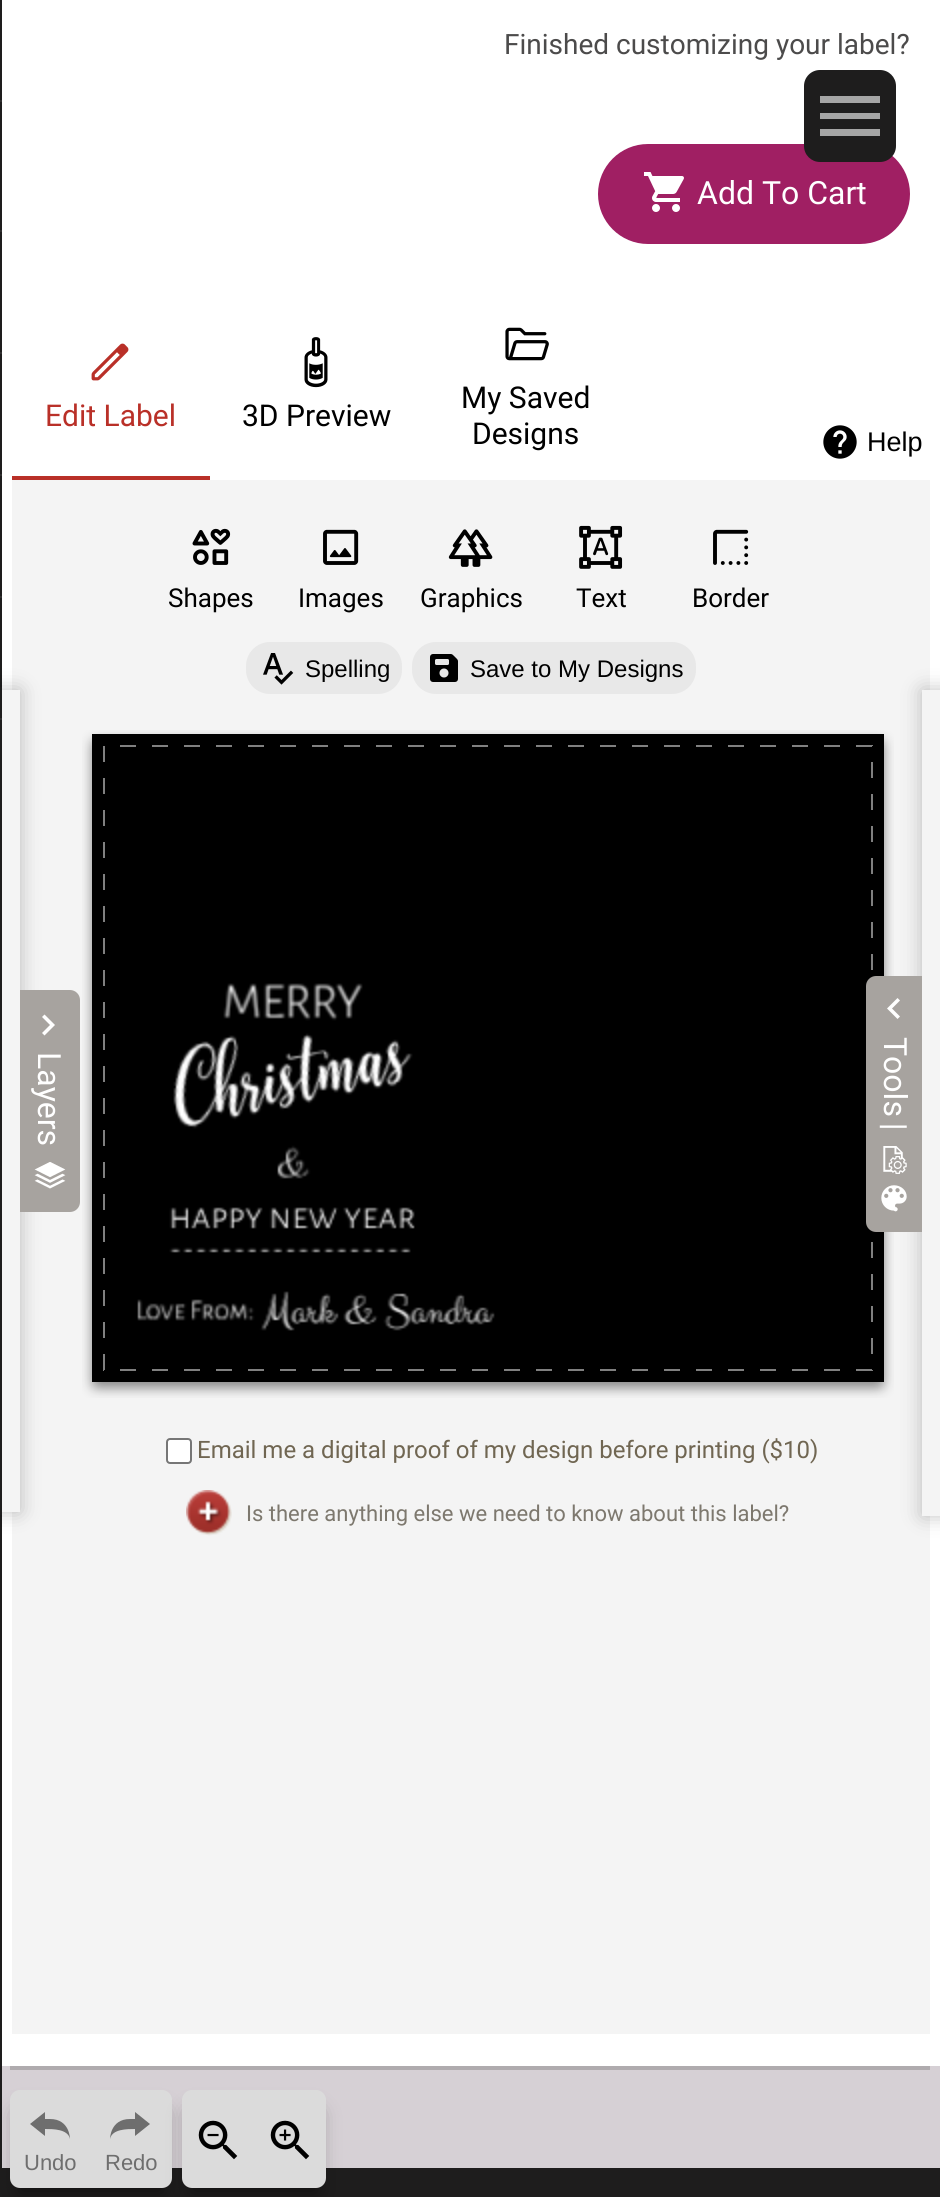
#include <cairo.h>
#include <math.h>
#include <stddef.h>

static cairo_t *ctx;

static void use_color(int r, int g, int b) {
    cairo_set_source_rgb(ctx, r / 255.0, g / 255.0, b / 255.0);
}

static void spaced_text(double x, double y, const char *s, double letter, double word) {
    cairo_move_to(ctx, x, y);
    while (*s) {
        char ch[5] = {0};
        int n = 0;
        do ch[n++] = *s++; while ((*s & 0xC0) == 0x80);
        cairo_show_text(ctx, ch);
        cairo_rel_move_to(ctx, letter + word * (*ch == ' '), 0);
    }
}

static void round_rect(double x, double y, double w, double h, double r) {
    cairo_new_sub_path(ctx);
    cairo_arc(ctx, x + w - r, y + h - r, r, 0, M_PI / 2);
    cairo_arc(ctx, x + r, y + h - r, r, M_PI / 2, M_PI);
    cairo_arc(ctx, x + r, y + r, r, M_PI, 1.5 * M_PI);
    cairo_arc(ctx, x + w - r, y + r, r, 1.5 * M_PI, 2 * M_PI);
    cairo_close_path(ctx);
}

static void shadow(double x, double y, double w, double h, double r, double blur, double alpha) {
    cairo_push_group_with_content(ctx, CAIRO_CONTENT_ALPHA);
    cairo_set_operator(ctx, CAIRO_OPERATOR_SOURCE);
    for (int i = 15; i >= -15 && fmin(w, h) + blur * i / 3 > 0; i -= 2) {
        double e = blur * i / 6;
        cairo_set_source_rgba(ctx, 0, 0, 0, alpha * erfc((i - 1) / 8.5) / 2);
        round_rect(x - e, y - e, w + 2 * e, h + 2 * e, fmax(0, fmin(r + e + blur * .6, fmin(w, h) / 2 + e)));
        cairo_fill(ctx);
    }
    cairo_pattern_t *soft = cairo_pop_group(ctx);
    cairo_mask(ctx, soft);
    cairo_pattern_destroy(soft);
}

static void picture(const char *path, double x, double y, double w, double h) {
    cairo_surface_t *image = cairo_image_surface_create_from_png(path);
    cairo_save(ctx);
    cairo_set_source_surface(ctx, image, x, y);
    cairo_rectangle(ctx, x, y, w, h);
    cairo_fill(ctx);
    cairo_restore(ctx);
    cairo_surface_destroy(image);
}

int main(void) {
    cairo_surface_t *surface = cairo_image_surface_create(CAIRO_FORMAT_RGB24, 940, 2197);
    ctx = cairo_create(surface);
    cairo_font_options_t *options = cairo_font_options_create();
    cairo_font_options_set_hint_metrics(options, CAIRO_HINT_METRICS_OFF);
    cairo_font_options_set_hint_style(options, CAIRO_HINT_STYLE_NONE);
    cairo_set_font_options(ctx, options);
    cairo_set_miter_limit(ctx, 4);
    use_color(30, 29, 29);
    cairo_paint(ctx);
    use_color(214, 208, 213);
    cairo_rectangle(ctx, 2, 2066, 938, 102);
    cairo_fill(ctx);
    use_color(175, 171, 174);
    cairo_rectangle(ctx, 10, 2066, 920, 4);
    cairo_fill(ctx);
    use_color(255, 255, 255);
    cairo_rectangle(ctx, 2, 0, 938, 2066);
    cairo_fill(ctx);
    cairo_select_font_face(ctx, "Roboto", CAIRO_FONT_SLANT_NORMAL, CAIRO_FONT_WEIGHT_NORMAL);
    cairo_set_font_size(ctx, 28);
    use_color(76, 75, 75);
    cairo_move_to(ctx, 504, 54);
    cairo_show_text(ctx, "Finished customizing your label?");
    use_color(160, 31, 99);
    round_rect(598, 144, 312, 100, 50);
    cairo_fill(ctx);
    picture("img1.png", 644, 172, 40, 40);
    cairo_set_font_size(ctx, 32);
    use_color(255, 255, 255);
    cairo_move_to(ctx, 697, 204);
    cairo_show_text(ctx, "Add To Cart");
    use_color(185, 48, 40);
    cairo_rectangle(ctx, 12, 476, 198, 4);
    cairo_fill(ctx);
    picture("img2.png", 91, 343, 38, 38);
    cairo_set_font_size(ctx, 30);
    cairo_move_to(ctx, 45, 426);
    cairo_show_text(ctx, "Edit Label");
    picture("img3.png", 304, 337, 24, 51);
    use_color(0, 0, 0);
    cairo_move_to(ctx, 242, 426);
    cairo_show_text(ctx, "3D Preview");
    picture("img4.png", 505, 327, 44, 34);
    cairo_move_to(ctx, 461, 408);
    cairo_show_text(ctx, "My Saved");
    cairo_move_to(ctx, 472, 444);
    cairo_show_text(ctx, "Designs");
    picture("img5.png", 823, 425, 34, 34);
    cairo_select_font_face(ctx, "Liberation Sans", CAIRO_FONT_SLANT_NORMAL, CAIRO_FONT_WEIGHT_NORMAL);
    cairo_set_font_size(ctx, 27);
    cairo_move_to(ctx, 867, 451);
    cairo_show_text(ctx, "Help");
    use_color(244, 244, 244);
    cairo_rectangle(ctx, 12, 480, 918, 1554);
    cairo_fill(ctx);
    picture("img6.png", 192, 528, 39, 37);
    cairo_select_font_face(ctx, "Roboto", CAIRO_FONT_SLANT_NORMAL, CAIRO_FONT_WEIGHT_NORMAL);
    cairo_set_font_size(ctx, 26);
    use_color(0, 0, 0);
    cairo_move_to(ctx, 168, 607);
    cairo_show_text(ctx, "Shapes");
    picture("img7.png", 323, 529, 36, 36);
    cairo_move_to(ctx, 298, 607);
    cairo_show_text(ctx, "Images");
    picture("img8.png", 448, 529, 45, 38);
    cairo_move_to(ctx, 420, 607);
    cairo_show_text(ctx, "Graphics");
    picture("img9.png", 579, 525, 44, 44);
    cairo_move_to(ctx, 576, 607);
    cairo_show_text(ctx, "Text");
    picture("img10.png", 713, 529, 36, 36);
    cairo_move_to(ctx, 692, 607);
    cairo_show_text(ctx, "Border");
    use_color(232, 232, 232);
    round_rect(246, 642, 156, 52, 24);
    cairo_fill(ctx);
    picture("img11.png", 263, 653, 31, 32);
    cairo_select_font_face(ctx, "Liberation Sans", CAIRO_FONT_SLANT_NORMAL, CAIRO_FONT_WEIGHT_NORMAL);
    cairo_set_font_size(ctx, 24);
    use_color(0, 0, 0);
    cairo_move_to(ctx, 305, 677);
    cairo_show_text(ctx, "Spelling");
    use_color(232, 232, 232);
    round_rect(412, 642, 284, 52, 24);
    cairo_fill(ctx);
    picture("img12.png", 430, 654, 28, 28);
    use_color(0, 0, 0);
    cairo_move_to(ctx, 470, 677);
    cairo_show_text(ctx, "Save to My Designs");
    picture("img13.png", 82, 730, 812, 668);
    cairo_new_path(ctx);
    cairo_move_to(ctx, 104, 746);
    cairo_line_to(ctx, 872, 746);
    cairo_line_to(ctx, 872, 1370);
    cairo_line_to(ctx, 104, 1370);
    cairo_close_path(ctx);
    use_color(128, 128, 128);
    cairo_set_dash(ctx, (double[]){16, 16}, 2, 16);
    cairo_stroke(ctx);
    use_color(255, 255, 255);
    round_rect(167, 1439, 24, 24, 3);
    cairo_fill_preserve(ctx);
    use_color(118, 118, 118);
    cairo_set_dash(ctx, NULL, 0, 0);
    cairo_stroke(ctx);
    cairo_select_font_face(ctx, "Roboto", CAIRO_FONT_SLANT_NORMAL, CAIRO_FONT_WEIGHT_NORMAL);
    use_color(112, 102, 82);
    cairo_move_to(ctx, 197, 1458);
    cairo_show_text(ctx, "Email me a digital proof of my design before printing ($10)");
    picture("img14.png", 186, 1490, 46, 46);
    cairo_set_font_size(ctx, 22);
    use_color(125, 120, 110);
    cairo_move_to(ctx, 246, 1521);
    cairo_show_text(ctx, "Is there anything else we need to know about this label?");
    use_color(0, 0, 0);
    shadow(18, 2112, 146, 82, 2, 10, 0.41);
    use_color(219, 219, 219);
    round_rect(10, 2090, 162, 98, 10);
    cairo_fill(ctx);
    use_color(110, 110, 110);
    cairo_new_path(ctx);
    cairo_move_to(ctx, 30, 2124);
    cairo_line_to(ctx, 45, 2112);
    cairo_line_to(ctx, 45, 2119);
    cairo_line_to(ctx, 50, 2119);
    cairo_curve_to(ctx, 70, 2119, 70, 2139, 70, 2139);
    cairo_curve_to(ctx, 68, 2129, 53, 2129, 45, 2129);
    cairo_line_to(ctx, 45, 2136);
    cairo_close_path(ctx);
    cairo_fill(ctx);
    cairo_select_font_face(ctx, "Liberation Sans", CAIRO_FONT_SLANT_NORMAL, CAIRO_FONT_WEIGHT_NORMAL);
    cairo_move_to(ctx, 24, 2170);
    cairo_show_text(ctx, "Undo");
    cairo_new_path(ctx);
    cairo_move_to(ctx, 150, 2124);
    cairo_line_to(ctx, 135, 2112);
    cairo_line_to(ctx, 135, 2119);
    cairo_line_to(ctx, 130, 2119);
    cairo_curve_to(ctx, 110, 2119, 110, 2139, 110, 2139);
    cairo_curve_to(ctx, 112, 2129, 127, 2129, 135, 2129);
    cairo_line_to(ctx, 135, 2136);
    cairo_close_path(ctx);
    cairo_fill(ctx);
    cairo_move_to(ctx, 105, 2170);
    cairo_show_text(ctx, "Redo");
    use_color(0, 0, 0);
    shadow(190, 2112, 128, 82, 2, 10, 0.41);
    use_color(219, 219, 219);
    round_rect(182, 2090, 144, 98, 10);
    cairo_fill(ctx);
    picture("img15.png", 198, 2120, 40, 40);
    picture("img16.png", 270, 2120, 40, 40);
    use_color(0, 0, 0);
    shadow(922, 690, 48, 826, 0, 10, 0.24);
    use_color(244, 244, 244);
    cairo_rectangle(ctx, 922, 690, 18, 826);
    cairo_fill(ctx);
    use_color(167, 163, 159);
    cairo_new_path(ctx);
    cairo_move_to(ctx, 876, 976);
    cairo_line_to(ctx, 922, 976);
    cairo_line_to(ctx, 922, 1232);
    cairo_line_to(ctx, 876, 1232);
    cairo_curve_to(ctx, 870.5, 1232, 866, 1227.5, 866, 1222);
    cairo_line_to(ctx, 866, 986);
    cairo_curve_to(ctx, 866, 980.5, 870.5, 976, 876, 976);
    cairo_close_path(ctx);
    cairo_fill(ctx);
    use_color(255, 255, 255);
    cairo_new_path(ctx);
    cairo_move_to(ctx, 900, 1000.5);
    cairo_line_to(ctx, 892, 1008.5);
    cairo_line_to(ctx, 900, 1016.5);
    cairo_line_to(ctx, 897.5, 1019);
    cairo_line_to(ctx, 887, 1008.5);
    cairo_line_to(ctx, 897.5, 998);
    cairo_close_path(ctx);
    cairo_fill(ctx);
    cairo_select_font_face(ctx, "Roboto", CAIRO_FONT_SLANT_NORMAL, CAIRO_FONT_WEIGHT_NORMAL);
    cairo_set_font_size(ctx, 32);
    cairo_save(ctx);
    cairo_translate(ctx, 884, 1037);
    cairo_rotate(ctx, 90 * M_PI / 180);
    spaced_text(0, 0, "Tools |", 0, -2);
    cairo_restore(ctx);
    picture("img17.png", 883, 1146, 24, 28);
    picture("img18.png", 881, 1185, 26, 27);
    use_color(0, 0, 0);
    shadow(-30, 690, 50, 822, 0, 10, 0.24);
    use_color(244, 244, 244);
    cairo_rectangle(ctx, 2, 690, 18, 822);
    cairo_fill(ctx);
    use_color(167, 163, 159);
    cairo_new_path(ctx);
    cairo_move_to(ctx, 20, 990);
    cairo_line_to(ctx, 70, 990);
    cairo_curve_to(ctx, 75.5, 990, 80, 994.5, 80, 1000);
    cairo_line_to(ctx, 80, 1202);
    cairo_curve_to(ctx, 80, 1207.5, 75.5, 1212, 70, 1212);
    cairo_line_to(ctx, 20, 1212);
    cairo_close_path(ctx);
    cairo_fill(ctx);
    use_color(255, 255, 255);
    cairo_new_path(ctx);
    cairo_move_to(ctx, 42, 1017);
    cairo_line_to(ctx, 50, 1025);
    cairo_line_to(ctx, 42, 1033);
    cairo_line_to(ctx, 44.5, 1035.5);
    cairo_line_to(ctx, 55, 1025);
    cairo_line_to(ctx, 44.5, 1014.5);
    cairo_close_path(ctx);
    cairo_fill(ctx);
    cairo_save(ctx);
    cairo_translate(ctx, 38, 1052);
    cairo_rotate(ctx, 90 * M_PI / 180);
    cairo_move_to(ctx, 0, 0);
    cairo_show_text(ctx, "Layers");
    cairo_restore(ctx);
    picture("img19.png", 34, 1162, 32, 27);
    use_color(30, 29, 29);
    cairo_rectangle(ctx, 0, 687, 2, 828);
    cairo_fill(ctx);
    use_color(48, 47, 47);
    cairo_rectangle(ctx, 0, 100, 2, 2);
    cairo_fill(ctx);
    cairo_rectangle(ctx, 0, 230, 2, 2);
    cairo_fill(ctx);
    cairo_rectangle(ctx, 0, 352, 2, 2);
    cairo_fill(ctx);
    cairo_rectangle(ctx, 0, 474, 2, 2);
    cairo_fill(ctx);
    cairo_rectangle(ctx, 0, 596, 2, 2);
    cairo_fill(ctx);
    cairo_rectangle(ctx, 0, 718, 2, 2);
    cairo_fill(ctx);
    use_color(30, 29, 29);
    round_rect(804, 70, 92, 92, 16);
    cairo_fill(ctx);
    use_color(165, 165, 165);
    cairo_new_path(ctx);
    cairo_move_to(ctx, 820, 136);
    cairo_line_to(ctx, 880, 136);
    cairo_line_to(ctx, 880, 129);
    cairo_line_to(ctx, 820, 129);
    cairo_close_path(ctx);
    cairo_move_to(ctx, 820, 119);
    cairo_line_to(ctx, 880, 119);
    cairo_line_to(ctx, 880, 113);
    cairo_line_to(ctx, 820, 113);
    cairo_close_path(ctx);
    cairo_move_to(ctx, 820, 96);
    cairo_line_to(ctx, 820, 103);
    cairo_line_to(ctx, 880, 103);
    cairo_line_to(ctx, 880, 96);
    cairo_close_path(ctx);
    cairo_fill(ctx);
    cairo_surface_write_to_png(surface, "result.png");
    cairo_font_options_destroy(options);
    cairo_destroy(ctx);
    cairo_surface_destroy(surface);
    return 0;
}
